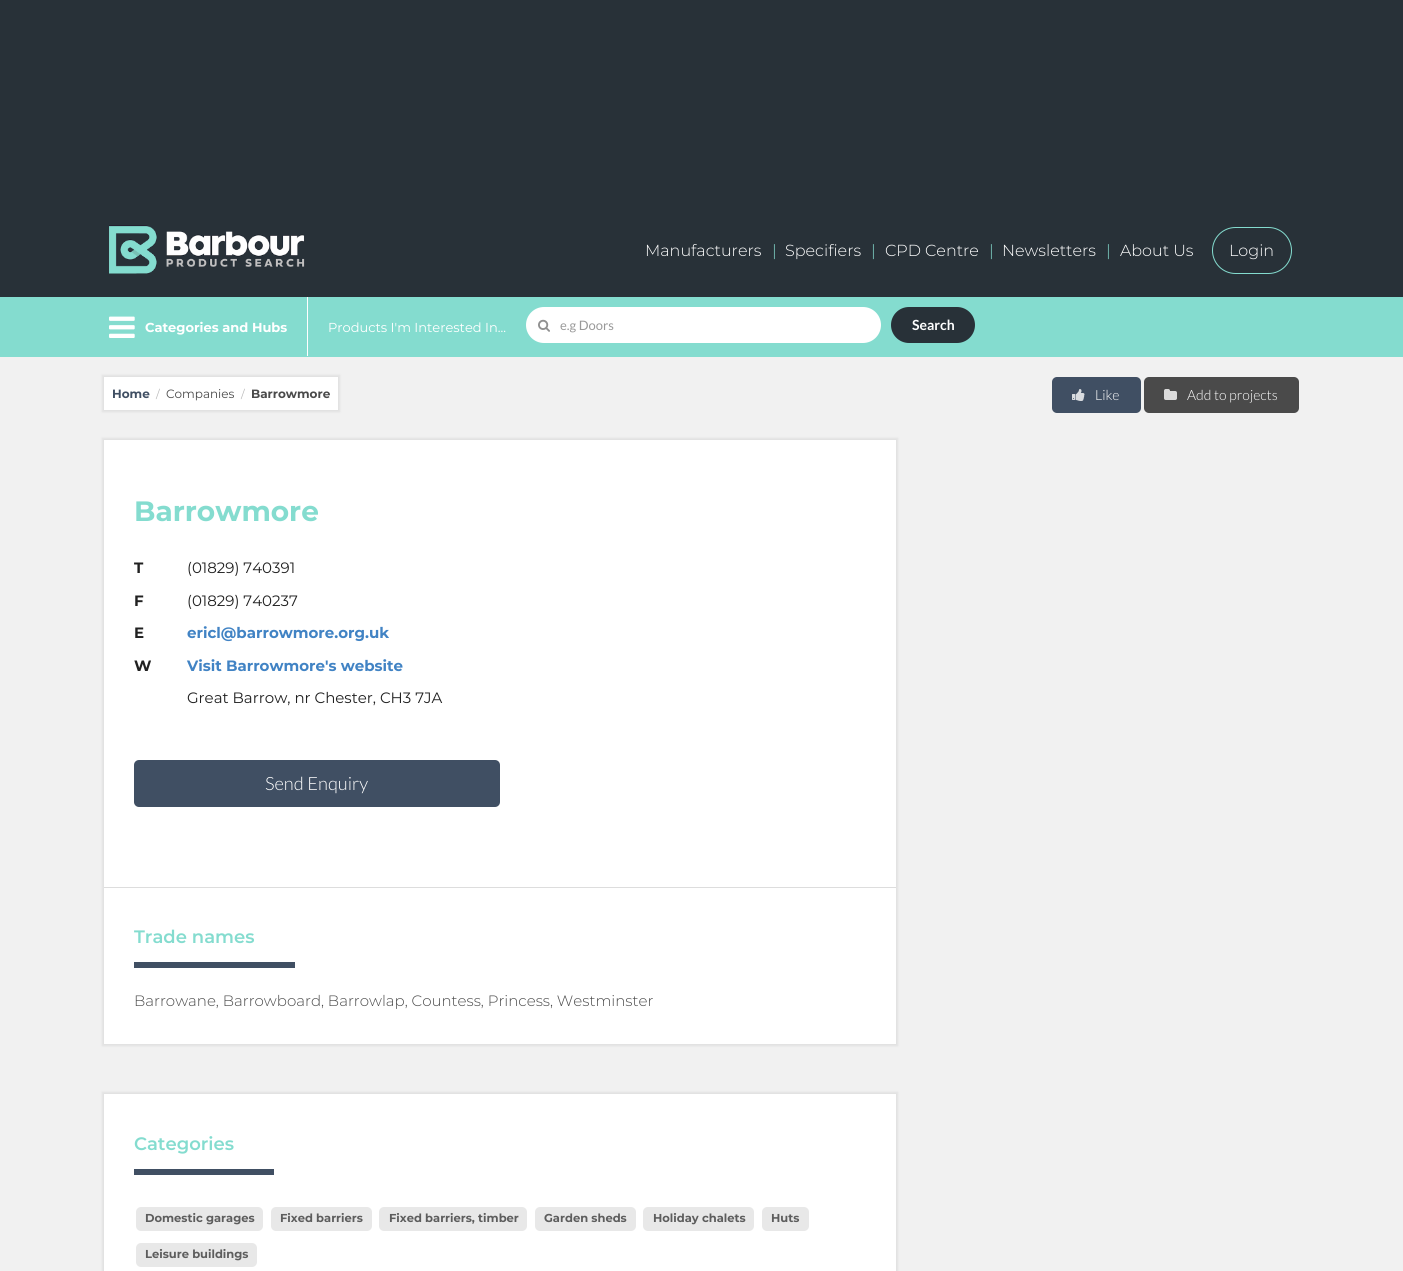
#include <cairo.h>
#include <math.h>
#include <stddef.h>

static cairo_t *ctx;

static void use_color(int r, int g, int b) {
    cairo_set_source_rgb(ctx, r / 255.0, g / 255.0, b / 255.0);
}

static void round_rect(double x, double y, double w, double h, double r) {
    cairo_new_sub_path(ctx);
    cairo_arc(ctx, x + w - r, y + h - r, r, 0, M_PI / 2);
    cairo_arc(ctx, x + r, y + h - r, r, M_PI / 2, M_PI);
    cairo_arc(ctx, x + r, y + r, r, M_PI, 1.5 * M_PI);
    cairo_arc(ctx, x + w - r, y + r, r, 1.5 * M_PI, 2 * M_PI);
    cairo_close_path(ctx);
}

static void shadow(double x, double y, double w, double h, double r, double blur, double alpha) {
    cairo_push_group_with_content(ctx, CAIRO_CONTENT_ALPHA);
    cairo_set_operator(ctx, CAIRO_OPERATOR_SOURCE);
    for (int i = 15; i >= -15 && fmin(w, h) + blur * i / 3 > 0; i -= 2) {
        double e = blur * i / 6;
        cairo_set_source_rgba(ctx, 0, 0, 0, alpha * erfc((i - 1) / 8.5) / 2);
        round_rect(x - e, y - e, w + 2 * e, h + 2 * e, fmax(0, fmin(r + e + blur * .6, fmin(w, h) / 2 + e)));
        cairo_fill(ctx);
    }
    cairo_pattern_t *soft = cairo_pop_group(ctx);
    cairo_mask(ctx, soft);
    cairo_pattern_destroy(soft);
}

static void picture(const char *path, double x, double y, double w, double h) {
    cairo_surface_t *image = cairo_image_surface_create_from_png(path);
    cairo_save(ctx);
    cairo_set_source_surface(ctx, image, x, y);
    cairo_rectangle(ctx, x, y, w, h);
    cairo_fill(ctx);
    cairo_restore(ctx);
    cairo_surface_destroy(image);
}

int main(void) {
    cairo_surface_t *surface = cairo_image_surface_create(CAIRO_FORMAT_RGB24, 1403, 1271);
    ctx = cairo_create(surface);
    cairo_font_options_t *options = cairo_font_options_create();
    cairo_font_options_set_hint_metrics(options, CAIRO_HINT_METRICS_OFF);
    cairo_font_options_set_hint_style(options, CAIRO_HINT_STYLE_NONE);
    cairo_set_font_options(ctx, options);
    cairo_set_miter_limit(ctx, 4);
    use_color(241, 241, 241);
    cairo_paint(ctx);
    use_color(40, 49, 56);
    cairo_rectangle(ctx, 0, 0, 1403, 297);
    cairo_fill(ctx);
    picture("img1.png", 109, 225, 196, 49);
    cairo_select_font_face(ctx, "Montserrat Light", CAIRO_FONT_SLANT_NORMAL, CAIRO_FONT_WEIGHT_NORMAL);
    cairo_set_font_size(ctx, 16);
    use_color(255, 255, 255);
    cairo_move_to(ctx, 645, 256);
    cairo_show_text(ctx, "Manufacturers");
    use_color(132, 220, 207);
    cairo_move_to(ctx, 772, 256);
    cairo_show_text(ctx, "|");
    use_color(255, 255, 255);
    cairo_move_to(ctx, 785, 256);
    cairo_show_text(ctx, "Specifiers");
    use_color(132, 220, 207);
    cairo_move_to(ctx, 871, 256);
    cairo_show_text(ctx, "|");
    use_color(255, 255, 255);
    cairo_move_to(ctx, 885, 256);
    cairo_show_text(ctx, "CPD Centre");
    use_color(132, 220, 207);
    cairo_move_to(ctx, 989, 256);
    cairo_show_text(ctx, "|");
    use_color(255, 255, 255);
    cairo_move_to(ctx, 1002, 256);
    cairo_show_text(ctx, "Newsletters");
    use_color(132, 220, 207);
    cairo_move_to(ctx, 1106, 256);
    cairo_show_text(ctx, "|");
    use_color(255, 255, 255);
    cairo_move_to(ctx, 1120, 256);
    cairo_show_text(ctx, "About Us");
    round_rect(1212.5, 227.5, 79, 46, 23);
    use_color(132, 220, 207);
    cairo_set_line_width(ctx, 1);
    cairo_stroke(ctx);
    use_color(255, 255, 255);
    cairo_move_to(ctx, 1229, 256);
    cairo_show_text(ctx, "Login");
    use_color(132, 220, 207);
    cairo_rectangle(ctx, 0, 297, 1403, 60);
    cairo_fill(ctx);
    picture("img2.png", 109, 316, 26, 22);
    cairo_select_font_face(ctx, "Montserrat", CAIRO_FONT_SLANT_NORMAL, CAIRO_FONT_WEIGHT_BOLD);
    cairo_set_font_size(ctx, 13);
    use_color(255, 255, 255);
    cairo_move_to(ctx, 145, 332);
    cairo_show_text(ctx, "Categories and Hubs");
    use_color(255, 254, 255);
    cairo_rectangle(ctx, 307, 297, 1, 59);
    cairo_fill(ctx);
    cairo_select_font_face(ctx, "Montserrat", CAIRO_FONT_SLANT_NORMAL, CAIRO_FONT_WEIGHT_NORMAL);
    use_color(255, 255, 255);
    cairo_move_to(ctx, 328, 332);
    cairo_show_text(ctx, "Products I'm Interested In...");
    round_rect(526, 307, 355, 36, 18);
    cairo_fill(ctx);
    picture("img3.png", 538, 319, 12, 13);
    cairo_select_font_face(ctx, "Lato", CAIRO_FONT_SLANT_NORMAL, CAIRO_FONT_WEIGHT_NORMAL);
    use_color(153, 153, 153);
    cairo_move_to(ctx, 560, 330);
    cairo_show_text(ctx, "e.g Doors");
    use_color(40, 49, 56);
    round_rect(891, 307, 84, 36, 18);
    cairo_fill(ctx);
    cairo_select_font_face(ctx, "Lato", CAIRO_FONT_SLANT_NORMAL, CAIRO_FONT_WEIGHT_BOLD);
    cairo_set_font_size(ctx, 14);
    use_color(255, 255, 255);
    cairo_move_to(ctx, 912, 330);
    cairo_show_text(ctx, "Search");
    use_color(219, 219, 219);
    shadow(102, 375, 238, 37, 0, 1, 0.7);
    use_color(255, 255, 255);
    cairo_rectangle(ctx, 104, 377, 234, 33);
    cairo_fill(ctx);
    cairo_select_font_face(ctx, "Montserrat", CAIRO_FONT_SLANT_NORMAL, CAIRO_FONT_WEIGHT_BOLD);
    cairo_set_font_size(ctx, 12);
    use_color(64, 79, 99);
    cairo_move_to(ctx, 112, 398);
    cairo_show_text(ctx, "Home");
    cairo_select_font_face(ctx, "Montserrat", CAIRO_FONT_SLANT_NORMAL, CAIRO_FONT_WEIGHT_NORMAL);
    cairo_set_font_size(ctx, 11);
    use_color(184, 184, 184);
    cairo_move_to(ctx, 156, 398);
    cairo_show_text(ctx, "/");
    cairo_set_font_size(ctx, 12);
    use_color(74, 74, 74);
    cairo_move_to(ctx, 166, 398);
    cairo_show_text(ctx, "Companies");
    cairo_set_font_size(ctx, 11);
    use_color(184, 184, 184);
    cairo_move_to(ctx, 241, 398);
    cairo_show_text(ctx, "/");
    cairo_select_font_face(ctx, "Montserrat", CAIRO_FONT_SLANT_NORMAL, CAIRO_FONT_WEIGHT_BOLD);
    cairo_set_font_size(ctx, 12);
    use_color(74, 74, 74);
    cairo_move_to(ctx, 251, 398);
    cairo_show_text(ctx, "Barrowmore");
    use_color(64, 79, 99);
    round_rect(1052, 377, 89, 36, 5);
    cairo_fill(ctx);
    picture("img4.png", 1072, 389, 13, 12);
    cairo_select_font_face(ctx, "Lato Light", CAIRO_FONT_SLANT_NORMAL, CAIRO_FONT_WEIGHT_NORMAL);
    cairo_set_font_size(ctx, 14);
    use_color(255, 255, 255);
    cairo_move_to(ctx, 1095, 400);
    cairo_show_text(ctx, "Like");
    use_color(74, 74, 74);
    round_rect(1144, 377, 155, 36, 5);
    cairo_fill(ctx);
    picture("img5.png", 1164, 389, 13, 11);
    use_color(255, 255, 255);
    cairo_move_to(ctx, 1187, 400);
    cairo_show_text(ctx, "Add to projects");
    use_color(219, 219, 219);
    shadow(102, 438, 796, 608, 0, 1, 0.7);
    use_color(255, 255, 255);
    cairo_rectangle(ctx, 104, 440, 792, 604);
    cairo_fill(ctx);
    cairo_select_font_face(ctx, "Montserrat", CAIRO_FONT_SLANT_NORMAL, CAIRO_FONT_WEIGHT_BOLD);
    cairo_set_font_size(ctx, 28);
    use_color(132, 220, 207);
    cairo_move_to(ctx, 134, 521);
    cairo_show_text(ctx, "Barrowmore");
    cairo_set_font_size(ctx, 15);
    use_color(33, 33, 33);
    cairo_move_to(ctx, 134, 573);
    cairo_show_text(ctx, "T");
    cairo_select_font_face(ctx, "Montserrat", CAIRO_FONT_SLANT_NORMAL, CAIRO_FONT_WEIGHT_NORMAL);
    cairo_move_to(ctx, 187, 573);
    cairo_show_text(ctx, "(01829) 740391");
    cairo_select_font_face(ctx, "Montserrat", CAIRO_FONT_SLANT_NORMAL, CAIRO_FONT_WEIGHT_BOLD);
    cairo_move_to(ctx, 134, 606);
    cairo_show_text(ctx, "F");
    cairo_select_font_face(ctx, "Montserrat", CAIRO_FONT_SLANT_NORMAL, CAIRO_FONT_WEIGHT_NORMAL);
    cairo_move_to(ctx, 187, 606);
    cairo_show_text(ctx, "(01829) 740237");
    cairo_select_font_face(ctx, "Montserrat", CAIRO_FONT_SLANT_NORMAL, CAIRO_FONT_WEIGHT_BOLD);
    cairo_move_to(ctx, 134, 638);
    cairo_show_text(ctx, "E");
    use_color(65, 131, 196);
    cairo_move_to(ctx, 187, 638);
    cairo_show_text(ctx, "ericl@barrowmore.org.uk");
    use_color(33, 33, 33);
    cairo_move_to(ctx, 134, 671);
    cairo_show_text(ctx, "W");
    use_color(65, 131, 196);
    cairo_move_to(ctx, 187, 671);
    cairo_show_text(ctx, "Visit Barrowmore's website");
    cairo_select_font_face(ctx, "Montserrat", CAIRO_FONT_SLANT_NORMAL, CAIRO_FONT_WEIGHT_NORMAL);
    use_color(33, 33, 33);
    cairo_move_to(ctx, 187, 703);
    cairo_show_text(ctx, "Great Barrow, nr Chester, CH3 7JA");
    use_color(64, 79, 99);
    round_rect(134, 760, 366, 47, 5);
    cairo_fill(ctx);
    cairo_select_font_face(ctx, "Lato Light", CAIRO_FONT_SLANT_NORMAL, CAIRO_FONT_WEIGHT_NORMAL);
    cairo_set_font_size(ctx, 18.25);
    use_color(255, 255, 255);
    cairo_move_to(ctx, 265, 790);
    cairo_show_text(ctx, "Send Enquiry");
    use_color(221, 221, 221);
    cairo_rectangle(ctx, 104, 887, 792, 1);
    cairo_fill(ctx);
    use_color(64, 79, 99);
    cairo_rectangle(ctx, 134, 962, 161, 6);
    cairo_fill(ctx);
    cairo_select_font_face(ctx, "Montserrat SemiBold", CAIRO_FONT_SLANT_NORMAL, CAIRO_FONT_WEIGHT_NORMAL);
    cairo_set_font_size(ctx, 18);
    use_color(132, 220, 207);
    cairo_move_to(ctx, 134, 943);
    cairo_show_text(ctx, "Trade names");
    cairo_select_font_face(ctx, "Montserrat Light", CAIRO_FONT_SLANT_NORMAL, CAIRO_FONT_WEIGHT_NORMAL);
    cairo_set_font_size(ctx, 15);
    use_color(74, 74, 74);
    cairo_move_to(ctx, 134, 1006);
    cairo_show_text(ctx, "Barrowane, Barrowboard, Barrowlap, Countess, Princess, Westminster");
    use_color(219, 219, 219);
    shadow(102, 1092, 796, 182, 0, 1, 0.7);
    use_color(255, 255, 255);
    cairo_rectangle(ctx, 104, 1094, 792, 177);
    cairo_fill(ctx);
    use_color(64, 79, 99);
    cairo_rectangle(ctx, 134, 1169, 140, 6);
    cairo_fill(ctx);
    cairo_select_font_face(ctx, "Montserrat SemiBold", CAIRO_FONT_SLANT_NORMAL, CAIRO_FONT_WEIGHT_NORMAL);
    cairo_set_font_size(ctx, 18);
    use_color(132, 220, 207);
    cairo_move_to(ctx, 134, 1150);
    cairo_show_text(ctx, "Categories");
    use_color(232, 232, 232);
    round_rect(136, 1207, 127, 24, 5);
    cairo_fill(ctx);
    cairo_select_font_face(ctx, "Montserrat", CAIRO_FONT_SLANT_NORMAL, CAIRO_FONT_WEIGHT_BOLD);
    cairo_set_font_size(ctx, 11.5);
    use_color(93, 93, 93);
    cairo_move_to(ctx, 145, 1222);
    cairo_show_text(ctx, "Domestic garages");
    use_color(232, 232, 232);
    round_rect(271, 1207, 101, 24, 5);
    cairo_fill(ctx);
    use_color(93, 93, 93);
    cairo_move_to(ctx, 280, 1222);
    cairo_show_text(ctx, "Fixed barriers");
    use_color(232, 232, 232);
    round_rect(379, 1207, 148, 24, 5);
    cairo_fill(ctx);
    use_color(93, 93, 93);
    cairo_move_to(ctx, 389, 1222);
    cairo_show_text(ctx, "Fixed barriers, timber");
    use_color(232, 232, 232);
    round_rect(535, 1207, 101, 24, 5);
    cairo_fill(ctx);
    use_color(93, 93, 93);
    cairo_move_to(ctx, 544, 1222);
    cairo_show_text(ctx, "Garden sheds");
    use_color(232, 232, 232);
    round_rect(643, 1207, 111, 24, 5);
    cairo_fill(ctx);
    use_color(93, 93, 93);
    cairo_move_to(ctx, 653, 1222);
    cairo_show_text(ctx, "Holiday chalets");
    use_color(232, 232, 232);
    round_rect(762, 1207, 47, 24, 5);
    cairo_fill(ctx);
    use_color(93, 93, 93);
    cairo_move_to(ctx, 771, 1222);
    cairo_show_text(ctx, "Huts");
    use_color(232, 232, 232);
    round_rect(136, 1243, 121, 24, 5);
    cairo_fill(ctx);
    use_color(93, 93, 93);
    cairo_move_to(ctx, 145, 1258);
    cairo_show_text(ctx, "Leisure buildings");
    cairo_surface_write_to_png(surface, "result.png");
    cairo_font_options_destroy(options);
    cairo_destroy(ctx);
    cairo_surface_destroy(surface);
    return 0;
}
